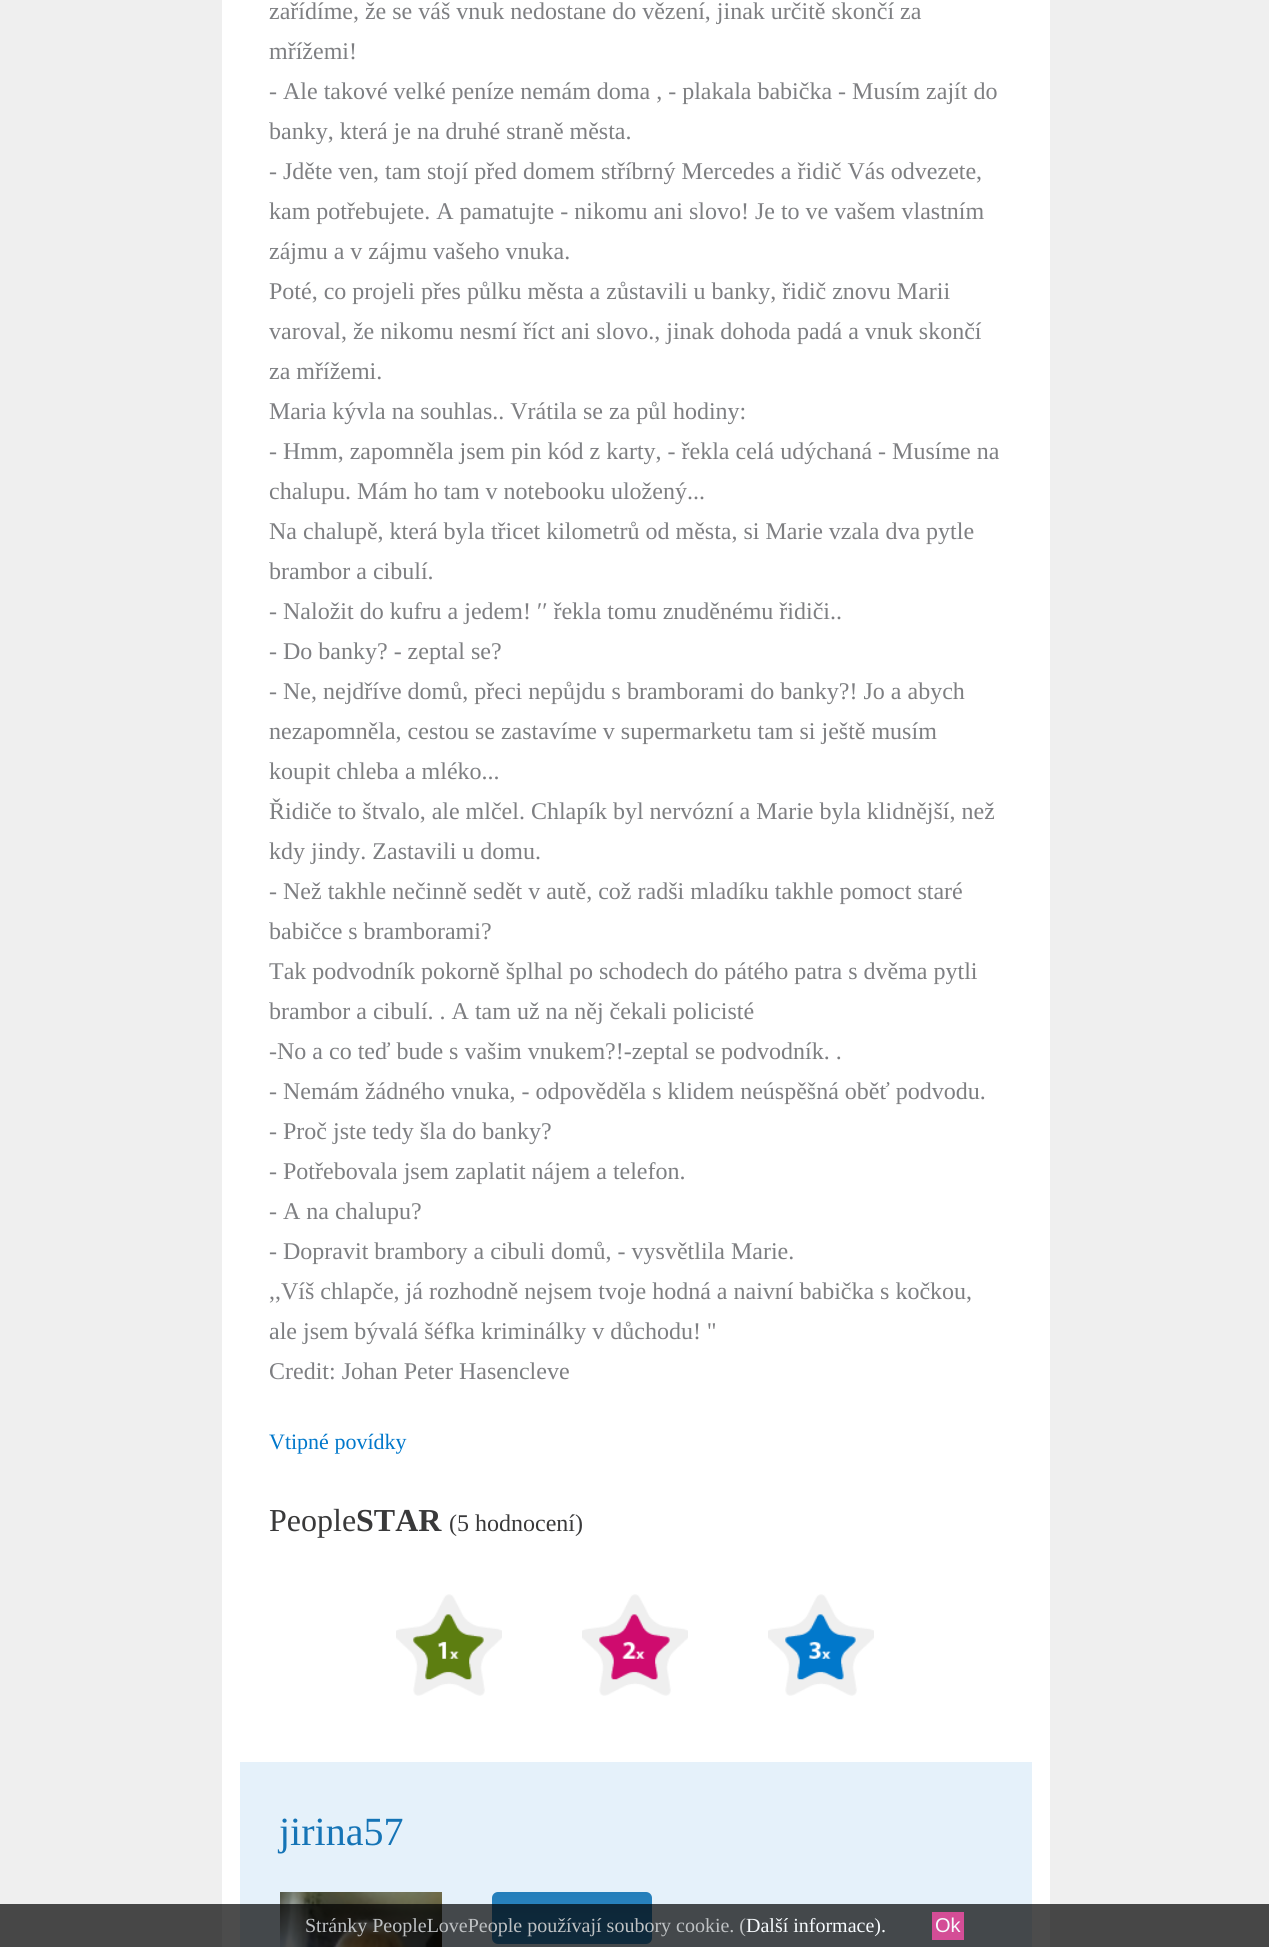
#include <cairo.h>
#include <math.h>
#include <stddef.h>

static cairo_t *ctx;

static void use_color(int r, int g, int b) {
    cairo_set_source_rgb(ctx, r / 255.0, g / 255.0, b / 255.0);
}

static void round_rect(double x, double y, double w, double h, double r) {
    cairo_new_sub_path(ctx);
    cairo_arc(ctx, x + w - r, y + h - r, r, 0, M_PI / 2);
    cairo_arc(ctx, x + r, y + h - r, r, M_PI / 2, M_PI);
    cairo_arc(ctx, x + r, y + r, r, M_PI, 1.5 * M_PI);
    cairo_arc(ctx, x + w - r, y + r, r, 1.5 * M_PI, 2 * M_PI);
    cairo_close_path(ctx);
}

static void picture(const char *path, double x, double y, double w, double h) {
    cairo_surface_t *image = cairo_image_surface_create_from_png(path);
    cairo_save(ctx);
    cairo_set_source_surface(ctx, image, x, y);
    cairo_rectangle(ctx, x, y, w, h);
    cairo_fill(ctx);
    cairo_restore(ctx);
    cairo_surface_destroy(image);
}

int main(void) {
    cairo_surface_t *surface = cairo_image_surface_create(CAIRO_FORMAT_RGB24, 1269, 1947);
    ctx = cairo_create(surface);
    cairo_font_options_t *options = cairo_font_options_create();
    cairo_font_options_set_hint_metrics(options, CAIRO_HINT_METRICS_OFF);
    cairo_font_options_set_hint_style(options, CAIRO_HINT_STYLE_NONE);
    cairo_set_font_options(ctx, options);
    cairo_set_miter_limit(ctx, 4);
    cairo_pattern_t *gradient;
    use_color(239, 239, 239);
    cairo_paint(ctx);
    use_color(255, 255, 255);
    cairo_rectangle(ctx, 222, 0, 828, 1947);
    cairo_fill(ctx);
    cairo_select_font_face(ctx, "Liberation Serif", CAIRO_FONT_SLANT_NORMAL, CAIRO_FONT_WEIGHT_NORMAL);
    cairo_set_font_size(ctx, 24);
    use_color(126, 127, 130);
    cairo_move_to(ctx, 269, 19);
    cairo_show_text(ctx, "zařídíme, že se váš vnuk nedostane do vězení, jinak určitě skončí za");
    cairo_move_to(ctx, 269, 59);
    cairo_show_text(ctx, "mřížemi!");
    cairo_move_to(ctx, 269, 99);
    cairo_show_text(ctx, "- Ale takové velké peníze nemám doma , - plakala babička - Musím zajít do");
    cairo_move_to(ctx, 269, 139);
    cairo_show_text(ctx, "banky, která je na druhé straně města.");
    cairo_move_to(ctx, 269, 179);
    cairo_show_text(ctx, "- Jděte ven, tam stojí před domem stříbrný Mercedes a řidič Vás odvezete,");
    cairo_move_to(ctx, 269, 219);
    cairo_show_text(ctx, "kam potřebujete. A pamatujte - nikomu ani slovo! Je to ve vašem vlastním");
    cairo_move_to(ctx, 269, 259);
    cairo_show_text(ctx, "zájmu a v zájmu vašeho vnuka.");
    cairo_move_to(ctx, 269, 299);
    cairo_show_text(ctx, "Poté, co projeli přes půlku města a zůstavili u banky, řidič znovu Marii");
    cairo_move_to(ctx, 269, 339);
    cairo_show_text(ctx, "varoval, že nikomu nesmí říct ani slovo., jinak dohoda padá a vnuk skončí");
    cairo_move_to(ctx, 269, 379);
    cairo_show_text(ctx, "za mřížemi.");
    cairo_move_to(ctx, 269, 419);
    cairo_show_text(ctx, "Maria kývla na souhlas.. Vrátila se za půl hodiny:");
    cairo_move_to(ctx, 269, 459);
    cairo_show_text(ctx, "- Hmm, zapomněla jsem pin kód z karty, - řekla celá udýchaná - Musíme na");
    cairo_move_to(ctx, 269, 499);
    cairo_show_text(ctx, "chalupu. Mám ho tam v notebooku uložený...");
    cairo_move_to(ctx, 269, 539);
    cairo_show_text(ctx, "Na chalupě, která byla třicet kilometrů od města, si Marie vzala dva pytle");
    cairo_move_to(ctx, 269, 579);
    cairo_show_text(ctx, "brambor a cibulí.");
    cairo_move_to(ctx, 269, 619);
    cairo_show_text(ctx, "- Naložit do kufru a jedem! ′′ řekla tomu znuděnému řidiči..");
    cairo_move_to(ctx, 269, 659);
    cairo_show_text(ctx, "- Do banky? - zeptal se?");
    cairo_move_to(ctx, 269, 699);
    cairo_show_text(ctx, "- Ne, nejdříve domů, přeci nepůjdu s bramborami do banky?! Jo a abych");
    cairo_move_to(ctx, 269, 739);
    cairo_show_text(ctx, "nezapomněla, cestou se zastavíme v supermarketu tam si ještě musím");
    cairo_move_to(ctx, 269, 779);
    cairo_show_text(ctx, "koupit chleba a mléko...");
    cairo_move_to(ctx, 269, 819);
    cairo_show_text(ctx, "Řidiče to štvalo, ale mlčel. Chlapík byl nervózní a Marie byla klidnější, než");
    cairo_move_to(ctx, 269, 859);
    cairo_show_text(ctx, "kdy jindy. Zastavili u domu.");
    cairo_move_to(ctx, 269, 899);
    cairo_show_text(ctx, "- Než takhle nečinně sedět v autě, což radši mladíku takhle pomoct staré");
    cairo_move_to(ctx, 269, 939);
    cairo_show_text(ctx, "babičce s bramborami?");
    cairo_move_to(ctx, 269, 979);
    cairo_show_text(ctx, "Tak podvodník pokorně šplhal po schodech do pátého patra s dvěma pytli");
    cairo_move_to(ctx, 269, 1019);
    cairo_show_text(ctx, "brambor a cibulí. . A tam už na něj čekali policisté");
    cairo_move_to(ctx, 269, 1059);
    cairo_show_text(ctx, "-No a co teď bude s vašim vnukem?!-zeptal se podvodník. .");
    cairo_move_to(ctx, 269, 1099);
    cairo_show_text(ctx, "- Nemám žádného vnuka, - odpověděla s klidem neúspěšná oběť podvodu.");
    cairo_move_to(ctx, 269, 1139);
    cairo_show_text(ctx, "- Proč jste tedy šla do banky?");
    cairo_move_to(ctx, 269, 1179);
    cairo_show_text(ctx, "- Potřebovala jsem zaplatit nájem a telefon.");
    cairo_move_to(ctx, 269, 1219);
    cairo_show_text(ctx, "- A na chalupu?");
    cairo_move_to(ctx, 269, 1259);
    cairo_show_text(ctx, "- Dopravit brambory a cibuli domů, - vysvětlila Marie.");
    cairo_move_to(ctx, 269, 1299);
    cairo_show_text(ctx, ",,Víš chlapče, já rozhodně nejsem tvoje hodná a naivní babička s kočkou,");
    cairo_move_to(ctx, 269, 1339);
    cairo_show_text(ctx, "ale jsem bývalá šéfka kriminálky v důchodu! \"");
    cairo_move_to(ctx, 269, 1379);
    cairo_show_text(ctx, "Credit: Johan Peter Hasencleve");
    cairo_set_font_size(ctx, 22);
    use_color(1, 120, 203);
    cairo_move_to(ctx, 269, 1449);
    cairo_show_text(ctx, "Vtipné povídky");
    cairo_set_font_size(ctx, 32);
    use_color(57, 57, 58);
    cairo_move_to(ctx, 269, 1531);
    cairo_show_text(ctx, "People");
    cairo_select_font_face(ctx, "Liberation Serif", CAIRO_FONT_SLANT_NORMAL, CAIRO_FONT_WEIGHT_BOLD);
    cairo_move_to(ctx, 356, 1531);
    cairo_show_text(ctx, "STAR");
    cairo_select_font_face(ctx, "Liberation Serif", CAIRO_FONT_SLANT_NORMAL, CAIRO_FONT_WEIGHT_NORMAL);
    cairo_set_font_size(ctx, 24);
    cairo_move_to(ctx, 449, 1531);
    cairo_show_text(ctx, "(5 hodnocení)");
    picture("img1.png", 396, 1594, 106, 102);
    picture("img2.png", 582, 1594, 106, 102);
    picture("img3.png", 768, 1594, 106, 102);
    use_color(229, 241, 250);
    cairo_rectangle(ctx, 240, 1762, 792, 185);
    cairo_fill(ctx);
    cairo_set_font_size(ctx, 40);
    use_color(21, 116, 182);
    cairo_move_to(ctx, 279, 1845);
    cairo_show_text(ctx, "jirina57");
    picture("img4.png", 280, 1892, 162, 55);
    gradient = cairo_pattern_create_linear(572, 1892, 572, 1944);
    cairo_pattern_add_color_stop_rgba(gradient, 0, 0.141, 0.494, 0.729, 1);
    cairo_pattern_add_color_stop_rgba(gradient, 1, 0.208, 0.557, 0.788, 1);
    cairo_set_source(ctx, gradient);
    cairo_pattern_destroy(gradient);
    round_rect(492, 1892, 160, 52, 6);
    cairo_fill(ctx);
    cairo_set_source_rgba(ctx, 0, 0, 0, 0.7);
    cairo_rectangle(ctx, 0, 1904, 1269, 43);
    cairo_fill(ctx);
    cairo_set_font_size(ctx, 20);
    use_color(190, 193, 195);
    cairo_move_to(ctx, 305, 1932);
    cairo_show_text(ctx, "Stránky PeopleLovePeople používají soubory cookie. (");
    use_color(247, 251, 254);
    cairo_move_to(ctx, 746, 1932);
    cairo_show_text(ctx, "Další informace).");
    use_color(212, 77, 150);
    cairo_rectangle(ctx, 932, 1912, 32, 28);
    cairo_fill(ctx);
    cairo_select_font_face(ctx, "Liberation Sans", CAIRO_FONT_SLANT_NORMAL, CAIRO_FONT_WEIGHT_NORMAL);
    use_color(247, 251, 254);
    cairo_move_to(ctx, 935, 1932);
    cairo_show_text(ctx, "Ok");
    cairo_surface_write_to_png(surface, "result.png");
    cairo_font_options_destroy(options);
    cairo_destroy(ctx);
    cairo_surface_destroy(surface);
    return 0;
}
